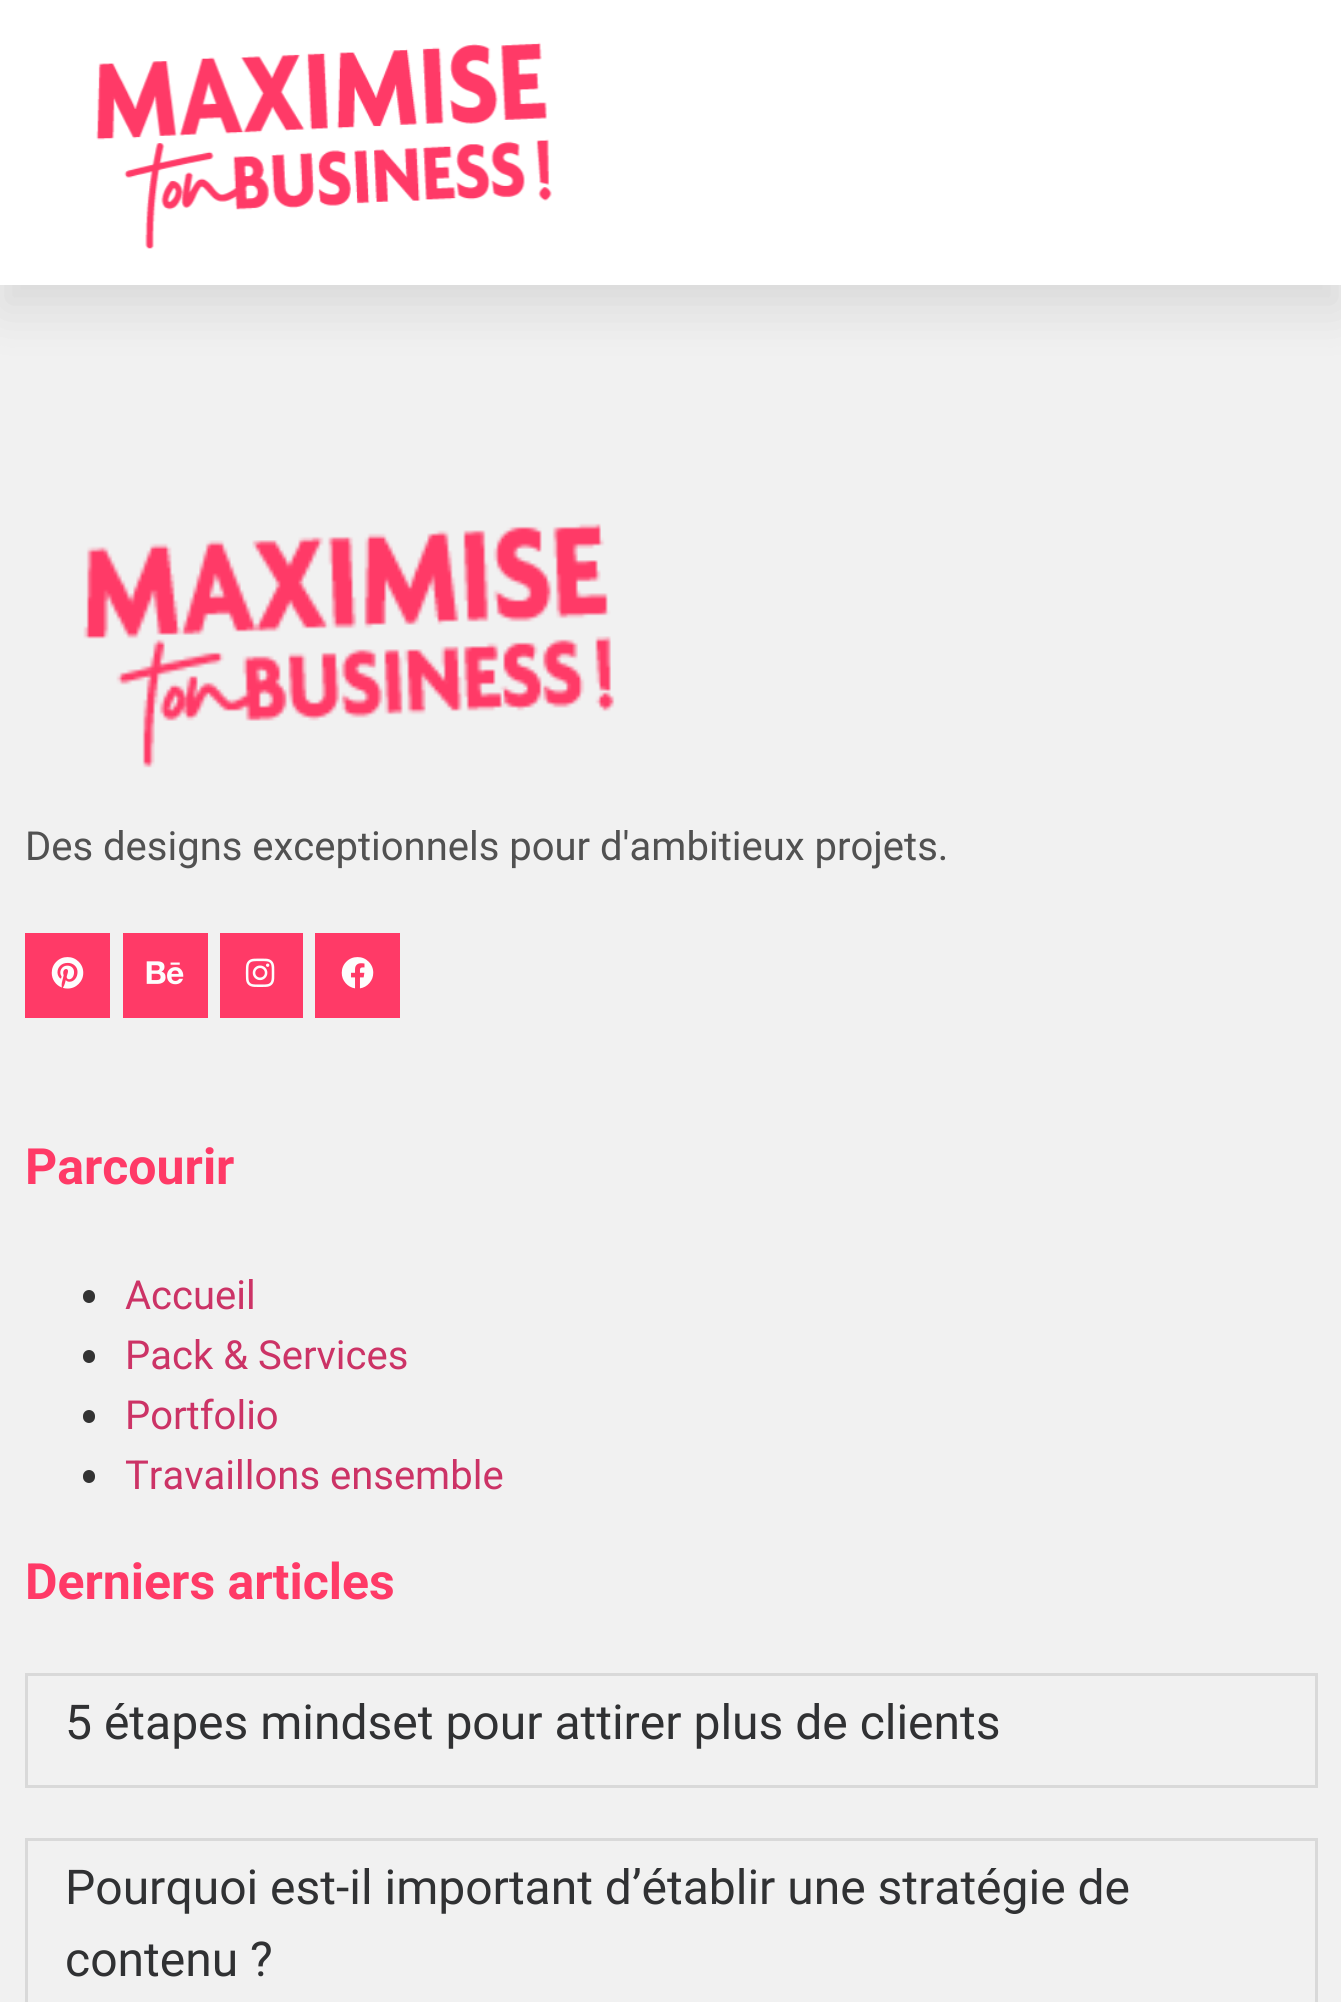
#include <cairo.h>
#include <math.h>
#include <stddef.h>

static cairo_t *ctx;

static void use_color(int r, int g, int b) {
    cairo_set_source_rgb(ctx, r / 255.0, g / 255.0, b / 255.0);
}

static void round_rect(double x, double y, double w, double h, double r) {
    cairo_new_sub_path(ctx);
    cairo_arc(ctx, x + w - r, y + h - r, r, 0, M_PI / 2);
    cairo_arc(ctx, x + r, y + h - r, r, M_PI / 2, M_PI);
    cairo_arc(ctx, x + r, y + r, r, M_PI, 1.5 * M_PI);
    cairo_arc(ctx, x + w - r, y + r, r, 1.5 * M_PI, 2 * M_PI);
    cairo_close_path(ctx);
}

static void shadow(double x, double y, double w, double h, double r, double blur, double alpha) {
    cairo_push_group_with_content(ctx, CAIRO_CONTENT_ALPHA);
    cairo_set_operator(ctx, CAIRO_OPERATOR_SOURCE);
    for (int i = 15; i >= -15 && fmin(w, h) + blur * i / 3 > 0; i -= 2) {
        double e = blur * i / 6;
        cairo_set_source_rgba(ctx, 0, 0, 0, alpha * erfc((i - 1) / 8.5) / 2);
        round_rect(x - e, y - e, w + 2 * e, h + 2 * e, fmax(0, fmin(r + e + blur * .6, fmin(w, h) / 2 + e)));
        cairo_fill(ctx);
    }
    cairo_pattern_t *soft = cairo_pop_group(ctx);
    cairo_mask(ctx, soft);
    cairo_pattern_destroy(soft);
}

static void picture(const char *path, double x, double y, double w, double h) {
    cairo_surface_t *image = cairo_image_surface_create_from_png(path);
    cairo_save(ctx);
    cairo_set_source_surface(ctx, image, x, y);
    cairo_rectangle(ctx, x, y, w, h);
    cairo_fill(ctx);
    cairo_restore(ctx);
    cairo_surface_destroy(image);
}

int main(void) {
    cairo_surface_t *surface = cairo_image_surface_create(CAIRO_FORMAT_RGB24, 1341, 2002);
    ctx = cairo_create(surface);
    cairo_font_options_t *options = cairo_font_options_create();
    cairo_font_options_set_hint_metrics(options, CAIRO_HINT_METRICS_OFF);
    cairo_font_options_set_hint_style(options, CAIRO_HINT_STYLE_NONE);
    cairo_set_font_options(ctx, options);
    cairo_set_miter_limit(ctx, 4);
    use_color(241, 241, 241);
    cairo_paint(ctx);
    use_color(0, 0, 0);
    shadow(0, 25, 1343, 285, 0, 25, 0.1);
    use_color(255, 255, 255);
    cairo_rectangle(ctx, 0, 0, 1341, 285);
    cairo_fill(ctx);
    picture("img1.png", 96, 42, 456, 207);
    picture("img2.png", 83, 523, 532, 245);
    cairo_select_font_face(ctx, "Roboto", CAIRO_FONT_SLANT_NORMAL, CAIRO_FONT_WEIGHT_NORMAL);
    cairo_set_font_size(ctx, 40);
    use_color(81, 81, 81);
    cairo_move_to(ctx, 25, 860);
    cairo_show_text(ctx, "Des designs exceptionnels pour d'ambitieux projets.");
    use_color(255, 58, 103);
    cairo_rectangle(ctx, 25, 933, 85, 85);
    cairo_fill(ctx);
    picture("img3.png", 51, 957, 33, 32);
    cairo_rectangle(ctx, 123, 933, 85, 85);
    cairo_fill(ctx);
    picture("img4.png", 146, 961, 38, 24);
    cairo_rectangle(ctx, 220, 933, 83, 85);
    cairo_fill(ctx);
    picture("img5.png", 245, 958, 30, 29);
    cairo_rectangle(ctx, 315, 933, 85, 85);
    cairo_fill(ctx);
    picture("img6.png", 341, 957, 33, 32);
    cairo_select_font_face(ctx, "Roboto", CAIRO_FONT_SLANT_NORMAL, CAIRO_FONT_WEIGHT_BOLD);
    cairo_set_font_size(ctx, 50);
    cairo_move_to(ctx, 25, 1184);
    cairo_show_text(ctx, "Parcourir");
    use_color(51, 51, 51);
    round_rect(83, 1290, 12, 13, 6);
    cairo_fill(ctx);
    cairo_select_font_face(ctx, "Roboto", CAIRO_FONT_SLANT_NORMAL, CAIRO_FONT_WEIGHT_NORMAL);
    cairo_set_font_size(ctx, 40);
    use_color(204, 51, 102);
    cairo_move_to(ctx, 125, 1309);
    cairo_show_text(ctx, "Accueil");
    use_color(51, 51, 51);
    round_rect(83, 1350, 12, 13, 6);
    cairo_fill(ctx);
    use_color(204, 51, 102);
    cairo_move_to(ctx, 125, 1369);
    cairo_show_text(ctx, "Pack & Services");
    use_color(51, 51, 51);
    round_rect(83, 1410, 12, 13, 6);
    cairo_fill(ctx);
    use_color(204, 51, 102);
    cairo_move_to(ctx, 125, 1429);
    cairo_show_text(ctx, "Portfolio");
    use_color(51, 51, 51);
    round_rect(83, 1470, 12, 13, 6);
    cairo_fill(ctx);
    use_color(204, 51, 102);
    cairo_move_to(ctx, 125, 1489);
    cairo_show_text(ctx, "Travaillons ensemble");
    cairo_select_font_face(ctx, "Roboto", CAIRO_FONT_SLANT_NORMAL, CAIRO_FONT_WEIGHT_BOLD);
    cairo_set_font_size(ctx, 50);
    use_color(255, 58, 103);
    cairo_move_to(ctx, 25, 1599);
    cairo_show_text(ctx, "Derniers articles");
    cairo_rectangle(ctx, 26.5, 1674.5, 1290, 112);
    use_color(217, 217, 217);
    cairo_set_line_width(ctx, 3);
    cairo_stroke(ctx);
    cairo_select_font_face(ctx, "Roboto", CAIRO_FONT_SLANT_NORMAL, CAIRO_FONT_WEIGHT_NORMAL);
    cairo_set_font_size(ctx, 48);
    use_color(48, 49, 51);
    cairo_move_to(ctx, 65, 1739);
    cairo_show_text(ctx, "5 étapes mindset pour attirer plus de clients");
    cairo_rectangle(ctx, 26.5, 1839.5, 1290, 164);
    use_color(217, 217, 217);
    cairo_stroke(ctx);
    use_color(48, 49, 51);
    cairo_move_to(ctx, 65, 1904);
    cairo_show_text(ctx, "Pourquoi est-il important d’établir une stratégie de");
    cairo_move_to(ctx, 65, 1976);
    cairo_show_text(ctx, "contenu ?");
    cairo_surface_write_to_png(surface, "result.png");
    cairo_font_options_destroy(options);
    cairo_destroy(ctx);
    cairo_surface_destroy(surface);
    return 0;
}
